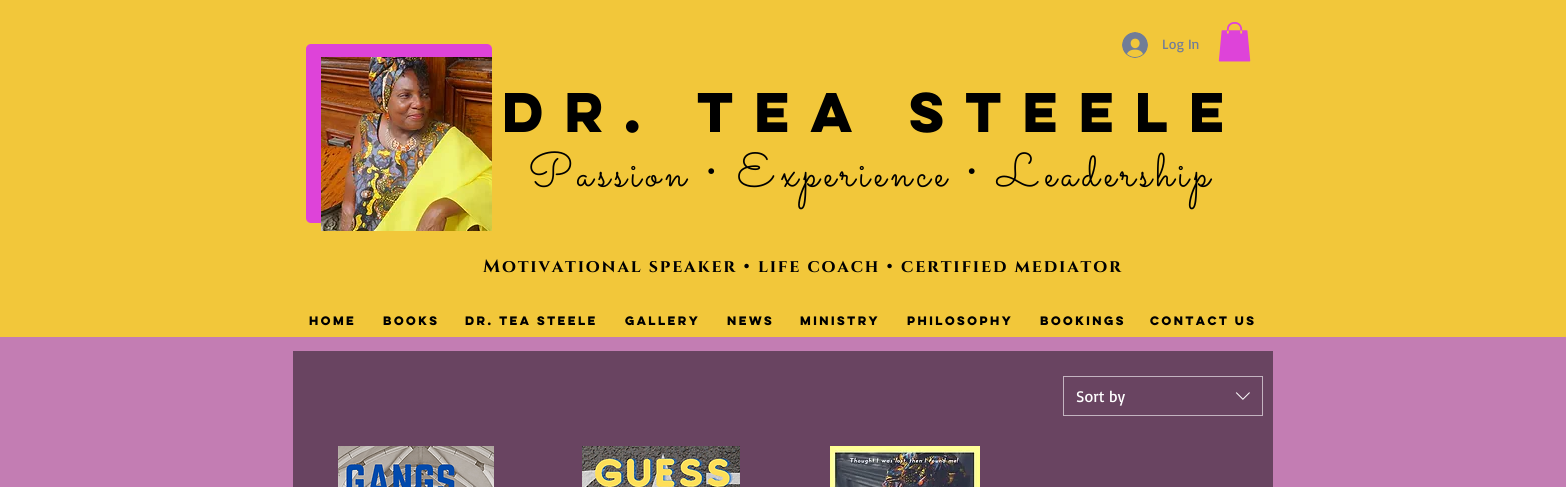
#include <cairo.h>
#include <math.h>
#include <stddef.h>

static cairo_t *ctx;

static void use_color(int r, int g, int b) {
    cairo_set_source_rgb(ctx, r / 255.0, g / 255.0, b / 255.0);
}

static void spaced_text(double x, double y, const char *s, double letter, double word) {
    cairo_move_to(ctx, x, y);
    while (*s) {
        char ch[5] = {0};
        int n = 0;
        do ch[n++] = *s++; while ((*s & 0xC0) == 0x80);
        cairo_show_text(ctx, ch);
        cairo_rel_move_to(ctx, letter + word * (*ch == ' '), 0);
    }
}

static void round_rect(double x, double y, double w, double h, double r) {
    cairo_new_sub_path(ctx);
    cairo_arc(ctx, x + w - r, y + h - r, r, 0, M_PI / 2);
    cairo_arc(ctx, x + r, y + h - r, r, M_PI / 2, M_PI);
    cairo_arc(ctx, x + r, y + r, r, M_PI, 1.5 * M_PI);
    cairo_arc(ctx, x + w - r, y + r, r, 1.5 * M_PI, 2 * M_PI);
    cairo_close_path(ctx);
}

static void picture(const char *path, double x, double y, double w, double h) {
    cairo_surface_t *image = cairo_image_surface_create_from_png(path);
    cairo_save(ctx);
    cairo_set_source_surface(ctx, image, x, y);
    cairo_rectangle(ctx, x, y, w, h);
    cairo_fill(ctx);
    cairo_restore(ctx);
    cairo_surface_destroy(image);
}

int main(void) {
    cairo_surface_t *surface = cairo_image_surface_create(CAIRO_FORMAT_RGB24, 1566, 487);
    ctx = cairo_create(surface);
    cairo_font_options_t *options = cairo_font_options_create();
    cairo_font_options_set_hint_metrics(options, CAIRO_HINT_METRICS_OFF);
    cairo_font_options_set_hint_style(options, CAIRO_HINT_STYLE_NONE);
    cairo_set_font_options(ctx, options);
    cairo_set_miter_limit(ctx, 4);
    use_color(195, 125, 179);
    cairo_paint(ctx);
    use_color(242, 199, 58);
    cairo_rectangle(ctx, 0, 0, 1566, 337);
    cairo_fill(ctx);
    use_color(222, 67, 217);
    round_rect(306, 44, 186, 179, 5);
    cairo_fill(ctx);
    picture("img1.png", 321, 57, 171, 174);
    picture("img2.png", 1122, 32, 26, 26);
    cairo_select_font_face(ctx, "Basic", CAIRO_FONT_SLANT_NORMAL, CAIRO_FONT_WEIGHT_NORMAL);
    cairo_set_font_size(ctx, 14);
    use_color(113, 125, 151);
    cairo_move_to(ctx, 1162, 49);
    cairo_show_text(ctx, "Log In");
    picture("img3.png", 1218, 22, 33, 40);
    cairo_select_font_face(ctx, "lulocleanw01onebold", CAIRO_FONT_SLANT_NORMAL, CAIRO_FONT_WEIGHT_BOLD);
    cairo_set_font_size(ctx, 50);
    use_color(0, 0, 0);
    spaced_text(502, 132, "DR. TEA STEELE", 10, 0);
    cairo_select_font_face(ctx, "Sacramento", CAIRO_FONT_SLANT_NORMAL, CAIRO_FONT_WEIGHT_NORMAL);
    cairo_set_font_size(ctx, 47);
    spaced_text(528, 186, "Passion • Experience • Leadership", 4.7, 0);
    cairo_select_font_face(ctx, "Cinzel", CAIRO_FONT_SLANT_NORMAL, CAIRO_FONT_WEIGHT_BOLD);
    cairo_set_font_size(ctx, 18);
    spaced_text(483, 272, "Motivational speaker • life coach • certified mediator", 1.8, 0);
    cairo_select_font_face(ctx, "lulocleanw01onebold", CAIRO_FONT_SLANT_NORMAL, CAIRO_FONT_WEIGHT_BOLD);
    cairo_set_font_size(ctx, 11);
    cairo_move_to(ctx, 309, 325);
    cairo_show_text(ctx, "HOME");
    cairo_move_to(ctx, 383, 325);
    cairo_show_text(ctx, "Books");
    cairo_move_to(ctx, 465, 325);
    cairo_show_text(ctx, "Dr. Tea Steele");
    cairo_move_to(ctx, 625, 325);
    cairo_show_text(ctx, "Gallery");
    cairo_move_to(ctx, 727, 325);
    cairo_show_text(ctx, "News");
    cairo_move_to(ctx, 800, 325);
    cairo_show_text(ctx, "Ministry");
    cairo_move_to(ctx, 907, 325);
    cairo_show_text(ctx, "Philosophy");
    cairo_move_to(ctx, 1040, 325);
    cairo_show_text(ctx, "Bookings");
    cairo_move_to(ctx, 1150, 325);
    cairo_show_text(ctx, "Contact Us");
    use_color(105, 68, 97);
    cairo_rectangle(ctx, 293, 351, 980, 136);
    cairo_fill(ctx);
    cairo_rectangle(ctx, 1063.5, 376.5, 199, 39);
    use_color(195, 180, 192);
    cairo_set_line_width(ctx, 1);
    cairo_stroke(ctx);
    cairo_select_font_face(ctx, "Basic", CAIRO_FONT_SLANT_NORMAL, CAIRO_FONT_WEIGHT_NORMAL);
    cairo_set_font_size(ctx, 16);
    use_color(255, 255, 255);
    cairo_move_to(ctx, 1076, 402);
    cairo_show_text(ctx, "Sort by");
    picture("img4.png", 1235, 392, 15, 8);
    picture("img5.png", 338, 446, 156, 41);
    picture("img6.png", 582, 446, 158, 41);
    picture("img7.png", 830, 446, 150, 41);
    cairo_surface_write_to_png(surface, "result.png");
    cairo_font_options_destroy(options);
    cairo_destroy(ctx);
    cairo_surface_destroy(surface);
    return 0;
}
